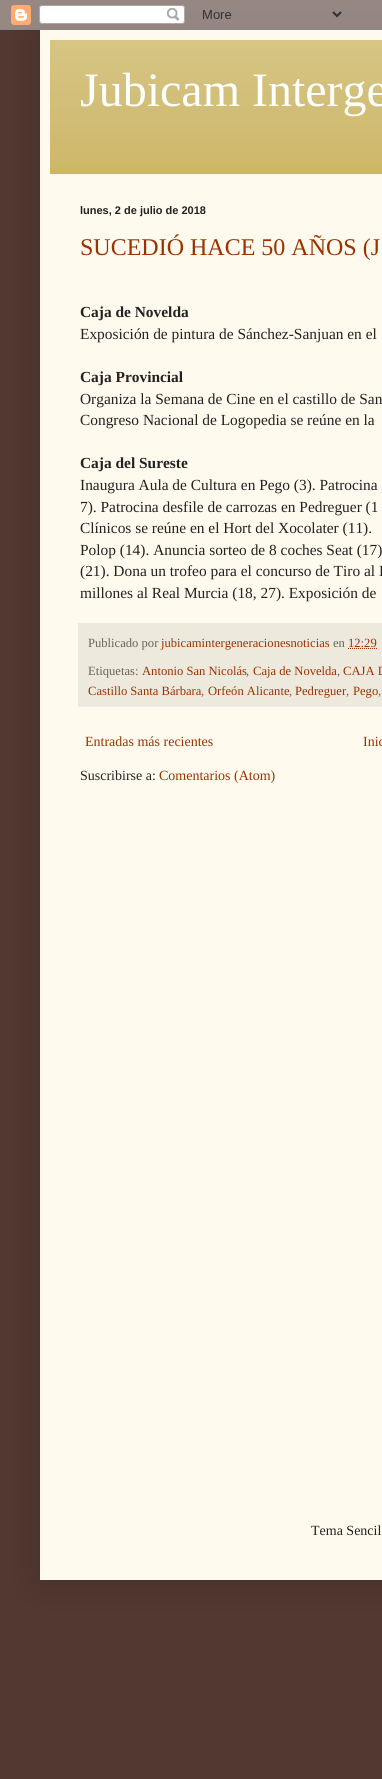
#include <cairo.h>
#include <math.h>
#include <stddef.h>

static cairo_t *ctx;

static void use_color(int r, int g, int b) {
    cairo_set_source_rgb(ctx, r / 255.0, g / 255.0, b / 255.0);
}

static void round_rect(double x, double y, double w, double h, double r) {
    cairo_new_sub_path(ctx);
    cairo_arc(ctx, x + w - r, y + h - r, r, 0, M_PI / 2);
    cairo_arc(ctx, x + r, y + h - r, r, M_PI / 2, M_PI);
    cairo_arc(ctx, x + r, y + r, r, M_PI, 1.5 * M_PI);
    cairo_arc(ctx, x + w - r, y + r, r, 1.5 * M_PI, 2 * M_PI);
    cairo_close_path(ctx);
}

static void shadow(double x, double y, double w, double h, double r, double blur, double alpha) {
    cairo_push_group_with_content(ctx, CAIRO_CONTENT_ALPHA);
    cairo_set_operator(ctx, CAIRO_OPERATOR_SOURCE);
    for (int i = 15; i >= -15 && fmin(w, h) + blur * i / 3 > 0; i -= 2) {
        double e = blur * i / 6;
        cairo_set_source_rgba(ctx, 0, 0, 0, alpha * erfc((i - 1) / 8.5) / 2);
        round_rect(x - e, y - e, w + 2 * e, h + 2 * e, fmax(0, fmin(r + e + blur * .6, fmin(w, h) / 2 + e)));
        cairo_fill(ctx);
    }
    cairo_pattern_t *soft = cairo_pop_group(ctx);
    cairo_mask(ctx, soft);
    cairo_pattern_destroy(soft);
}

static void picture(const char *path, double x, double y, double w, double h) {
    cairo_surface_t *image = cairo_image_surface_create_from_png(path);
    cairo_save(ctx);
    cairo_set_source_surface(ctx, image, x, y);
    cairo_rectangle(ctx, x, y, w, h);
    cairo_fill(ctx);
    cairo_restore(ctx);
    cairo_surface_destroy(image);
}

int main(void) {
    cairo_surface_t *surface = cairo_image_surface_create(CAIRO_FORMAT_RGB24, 382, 1779);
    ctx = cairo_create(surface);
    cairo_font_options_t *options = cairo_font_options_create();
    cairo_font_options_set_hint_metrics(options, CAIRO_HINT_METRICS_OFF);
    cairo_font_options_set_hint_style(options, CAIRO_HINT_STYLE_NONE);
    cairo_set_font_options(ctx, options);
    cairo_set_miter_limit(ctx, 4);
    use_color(81, 56, 49);
    cairo_paint(ctx);
    use_color(0, 0, 0);
    shadow(40, 30, 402, 1550, 0, 20, 0.15);
    picture("img1.png", 0, 0, 382, 30);
    use_color(255, 249, 238);
    cairo_rectangle(ctx, 40, 30, 342, 1550);
    cairo_fill(ctx);
    use_color(204, 182, 102);
    cairo_rectangle(ctx, 50, 40, 332, 134);
    cairo_fill(ctx);
    picture("img2.png", 50, 40, 332, 130);
    cairo_select_font_face(ctx, "Liberation Serif", CAIRO_FONT_SLANT_NORMAL, CAIRO_FONT_WEIGHT_NORMAL);
    cairo_set_font_size(ctx, 48);
    use_color(255, 255, 255);
    cairo_move_to(ctx, 80, 106);
    cairo_show_text(ctx, "Jubicam Interge");
    cairo_select_font_face(ctx, "Liberation Sans", CAIRO_FONT_SLANT_NORMAL, CAIRO_FONT_WEIGHT_BOLD);
    cairo_set_font_size(ctx, 11);
    use_color(34, 34, 34);
    cairo_move_to(ctx, 80, 214);
    cairo_show_text(ctx, "lunes, 2 de julio de 2018");
    cairo_select_font_face(ctx, "Liberation Serif", CAIRO_FONT_SLANT_NORMAL, CAIRO_FONT_WEIGHT_NORMAL);
    cairo_set_font_size(ctx, 24);
    use_color(153, 51, 0);
    cairo_move_to(ctx, 80, 255);
    cairo_show_text(ctx, "SUCEDIÓ HACE 50 AÑOS (J");
    cairo_select_font_face(ctx, "Liberation Serif", CAIRO_FONT_SLANT_NORMAL, CAIRO_FONT_WEIGHT_BOLD);
    cairo_set_font_size(ctx, 15.4);
    use_color(34, 34, 34);
    cairo_move_to(ctx, 80, 317);
    cairo_show_text(ctx, "Caja de Novelda");
    cairo_select_font_face(ctx, "Liberation Serif", CAIRO_FONT_SLANT_NORMAL, CAIRO_FONT_WEIGHT_NORMAL);
    cairo_move_to(ctx, 80, 339);
    cairo_show_text(ctx, "Exposición de pintura de Sánchez-Sanjuan en el");
    cairo_select_font_face(ctx, "Liberation Serif", CAIRO_FONT_SLANT_NORMAL, CAIRO_FONT_WEIGHT_BOLD);
    cairo_move_to(ctx, 80, 382);
    cairo_show_text(ctx, "Caja Provincial");
    cairo_select_font_face(ctx, "Liberation Serif", CAIRO_FONT_SLANT_NORMAL, CAIRO_FONT_WEIGHT_NORMAL);
    cairo_move_to(ctx, 80, 404);
    cairo_show_text(ctx, "Organiza la Semana de Cine en el castillo de San");
    cairo_move_to(ctx, 80, 425);
    cairo_show_text(ctx, "Congreso Nacional de Logopedia se reúne en la");
    cairo_select_font_face(ctx, "Liberation Serif", CAIRO_FONT_SLANT_NORMAL, CAIRO_FONT_WEIGHT_BOLD);
    cairo_move_to(ctx, 80, 468);
    cairo_show_text(ctx, "Caja del Sureste");
    cairo_select_font_face(ctx, "Liberation Serif", CAIRO_FONT_SLANT_NORMAL, CAIRO_FONT_WEIGHT_NORMAL);
    cairo_move_to(ctx, 80, 490);
    cairo_show_text(ctx, "Inaugura Aula de Cultura en Pego (3). Patrocina");
    cairo_move_to(ctx, 80, 512);
    cairo_show_text(ctx, "7). Patrocina desfile de carrozas en Pedreguer (1");
    cairo_move_to(ctx, 80, 533);
    cairo_show_text(ctx, "Clínicos se reúne en el Hort del Xocolater (11).");
    cairo_move_to(ctx, 80, 555);
    cairo_show_text(ctx, "Polop (14). Anuncia sorteo de 8 coches Seat (17)");
    cairo_move_to(ctx, 80, 576);
    cairo_show_text(ctx, "(21). Dona un trofeo para el concurso de Tiro al P");
    cairo_move_to(ctx, 80, 598);
    cairo_show_text(ctx, "millones al Real Murcia (18, 27). Exposición de");
    use_color(238, 233, 221);
    cairo_rectangle(ctx, 78, 623, 304, 83);
    cairo_fill(ctx);
    use_color(238, 238, 238);
    cairo_rectangle(ctx, 78, 706, 304, 1);
    cairo_fill(ctx);
    cairo_set_font_size(ctx, 12.6);
    use_color(102, 101, 85);
    cairo_move_to(ctx, 88, 647);
    cairo_show_text(ctx, "Publicado por");
    use_color(153, 51, 0);
    cairo_move_to(ctx, 161, 647);
    cairo_show_text(ctx, "jubicamintergeneracionesnoticias");
    use_color(102, 101, 85);
    cairo_move_to(ctx, 333, 647);
    cairo_show_text(ctx, "en");
    cairo_new_path(ctx);
    cairo_move_to(ctx, 348, 648.5);
    cairo_line_to(ctx, 377, 648.5);
    use_color(153, 51, 0);
    cairo_set_line_width(ctx, 1);
    cairo_set_dash(ctx, (double[]){1, 1}, 2, 0);
    cairo_stroke(ctx);
    cairo_move_to(ctx, 348, 647);
    cairo_show_text(ctx, "12:29");
    use_color(102, 101, 85);
    cairo_move_to(ctx, 88, 675);
    cairo_show_text(ctx, "Etiquetas:");
    use_color(153, 51, 0);
    cairo_move_to(ctx, 142, 675);
    cairo_show_text(ctx, "Antonio San Nicolás");
    use_color(102, 101, 85);
    cairo_move_to(ctx, 246, 675);
    cairo_show_text(ctx, ",");
    use_color(153, 51, 0);
    cairo_move_to(ctx, 253, 675);
    cairo_show_text(ctx, "Caja de Novelda");
    use_color(102, 101, 85);
    cairo_move_to(ctx, 337, 675);
    cairo_show_text(ctx, ",");
    use_color(153, 51, 0);
    cairo_move_to(ctx, 343, 675);
    cairo_show_text(ctx, "CAJA D");
    cairo_move_to(ctx, 88, 695);
    cairo_show_text(ctx, "Castillo Santa Bárbara");
    use_color(102, 101, 85);
    cairo_move_to(ctx, 201, 695);
    cairo_show_text(ctx, ",");
    use_color(153, 51, 0);
    cairo_move_to(ctx, 208, 695);
    cairo_show_text(ctx, "Orfeón Alicante");
    use_color(102, 101, 85);
    cairo_move_to(ctx, 289, 695);
    cairo_show_text(ctx, ",");
    use_color(153, 51, 0);
    cairo_move_to(ctx, 295, 695);
    cairo_show_text(ctx, "Pedreguer");
    use_color(102, 101, 85);
    cairo_move_to(ctx, 346, 695);
    cairo_show_text(ctx, ",");
    use_color(153, 51, 0);
    cairo_move_to(ctx, 353, 695);
    cairo_show_text(ctx, "Pego");
    use_color(102, 101, 85);
    cairo_move_to(ctx, 378, 695);
    cairo_show_text(ctx, ",");
    cairo_set_font_size(ctx, 14);
    use_color(153, 51, 0);
    cairo_move_to(ctx, 85, 746);
    cairo_show_text(ctx, "Entradas más recientes");
    cairo_move_to(ctx, 363, 746);
    cairo_show_text(ctx, "Inic");
    use_color(34, 34, 34);
    cairo_move_to(ctx, 80, 780);
    cairo_show_text(ctx, "Suscribirse a:");
    use_color(153, 51, 0);
    cairo_move_to(ctx, 159, 780);
    cairo_show_text(ctx, "Comentarios (Atom)");
    use_color(34, 34, 34);
    cairo_move_to(ctx, 311, 1535);
    cairo_show_text(ctx, "Tema Sencil");
    cairo_surface_write_to_png(surface, "result.png");
    cairo_font_options_destroy(options);
    cairo_destroy(ctx);
    cairo_surface_destroy(surface);
    return 0;
}
